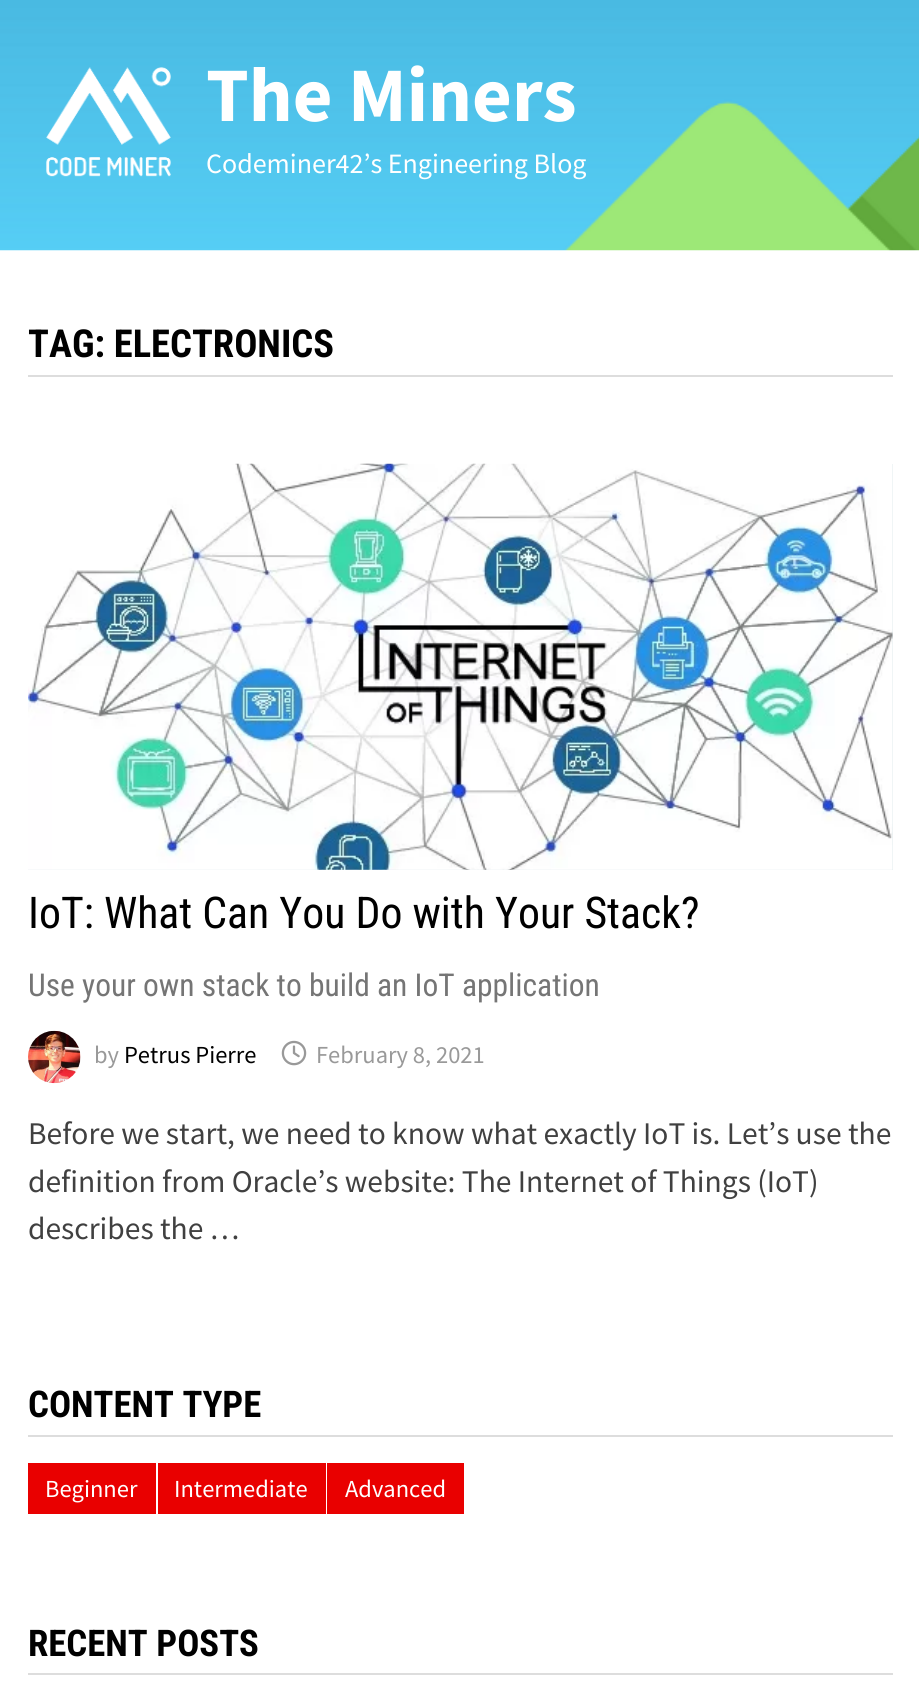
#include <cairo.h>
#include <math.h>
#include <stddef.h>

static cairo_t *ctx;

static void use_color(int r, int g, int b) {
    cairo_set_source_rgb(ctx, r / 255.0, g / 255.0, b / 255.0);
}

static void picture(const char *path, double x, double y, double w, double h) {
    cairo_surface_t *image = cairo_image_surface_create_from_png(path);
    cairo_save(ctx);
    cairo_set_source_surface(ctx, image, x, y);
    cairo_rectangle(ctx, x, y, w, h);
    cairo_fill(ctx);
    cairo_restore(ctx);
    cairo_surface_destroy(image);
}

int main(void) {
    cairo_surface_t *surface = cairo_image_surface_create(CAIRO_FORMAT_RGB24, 919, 1696);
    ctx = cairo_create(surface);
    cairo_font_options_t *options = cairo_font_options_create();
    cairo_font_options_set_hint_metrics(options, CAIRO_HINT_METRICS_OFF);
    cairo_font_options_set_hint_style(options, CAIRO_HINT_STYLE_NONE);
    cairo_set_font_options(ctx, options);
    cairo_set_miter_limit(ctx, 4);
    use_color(255, 255, 255);
    cairo_paint(ctx);
    picture("img1.png", 0, 0, 919, 251);
    picture("img2.png", 46, 67, 125, 110);
    cairo_select_font_face(ctx, "Source Sans Pro", CAIRO_FONT_SLANT_NORMAL, CAIRO_FONT_WEIGHT_BOLD);
    cairo_set_font_size(ctx, 77);
    use_color(255, 255, 255);
    cairo_move_to(ctx, 206, 121);
    cairo_show_text(ctx, "The Miners");
    cairo_select_font_face(ctx, "Source Sans Pro", CAIRO_FONT_SLANT_NORMAL, CAIRO_FONT_WEIGHT_NORMAL);
    cairo_set_font_size(ctx, 28);
    cairo_move_to(ctx, 206, 173);
    cairo_show_text(ctx, "Codeminer42’s Engineering Blog");
    use_color(221, 221, 221);
    cairo_rectangle(ctx, 28, 375, 865, 2);
    cairo_fill(ctx);
    cairo_select_font_face(ctx, "Roboto Condensed", CAIRO_FONT_SLANT_NORMAL, CAIRO_FONT_WEIGHT_BOLD);
    cairo_set_font_size(ctx, 38.5);
    use_color(0, 0, 0);
    cairo_move_to(ctx, 28, 357);
    cairo_show_text(ctx, "TAG: ELECTRONICS");
    use_color(225, 235, 237);
    cairo_rectangle(ctx, 28, 464, 865, 406);
    cairo_fill(ctx);
    picture("img3.png", 28, 463, 865, 407);
    cairo_select_font_face(ctx, "Roboto Condensed", CAIRO_FONT_SLANT_NORMAL, CAIRO_FONT_WEIGHT_NORMAL);
    cairo_set_font_size(ctx, 43.75);
    use_color(0, 0, 0);
    cairo_move_to(ctx, 28, 928);
    cairo_show_text(ctx, "IoT: What Can You Do with Your Stack?");
    cairo_set_font_size(ctx, 31.5);
    use_color(117, 117, 117);
    cairo_move_to(ctx, 28, 996);
    cairo_show_text(ctx, "Use your own stack to build an IoT application");
    picture("img4.png", 28, 1030, 53, 54);
    cairo_select_font_face(ctx, "Source Sans Pro", CAIRO_FONT_SLANT_NORMAL, CAIRO_FONT_WEIGHT_NORMAL);
    cairo_set_font_size(ctx, 24.5);
    use_color(153, 153, 153);
    cairo_move_to(ctx, 94, 1063);
    cairo_show_text(ctx, "by");
    use_color(0, 0, 0);
    cairo_move_to(ctx, 124, 1063);
    cairo_show_text(ctx, "Petrus Pierre");
    picture("img5.png", 281, 1040, 26, 26);
    use_color(153, 153, 153);
    cairo_move_to(ctx, 316, 1063);
    cairo_show_text(ctx, "February 8, 2021");
    cairo_set_font_size(ctx, 31.5);
    use_color(64, 64, 64);
    cairo_move_to(ctx, 28, 1144);
    cairo_show_text(ctx, "Before we start, we need to know what exactly IoT is. Let’s use the");
    cairo_move_to(ctx, 28, 1192);
    cairo_show_text(ctx, "definition from Oracle’s website: The Internet of Things (IoT)");
    cairo_move_to(ctx, 28, 1239);
    cairo_show_text(ctx, "describes the …");
    use_color(221, 221, 221);
    cairo_rectangle(ctx, 28, 1435, 865, 2);
    cairo_fill(ctx);
    cairo_select_font_face(ctx, "Roboto Condensed", CAIRO_FONT_SLANT_NORMAL, CAIRO_FONT_WEIGHT_BOLD);
    cairo_set_font_size(ctx, 36.75);
    use_color(0, 0, 0);
    cairo_move_to(ctx, 28, 1417);
    cairo_show_text(ctx, "CONTENT TYPE");
    use_color(233, 0, 0);
    cairo_rectangle(ctx, 28, 1463, 128, 51);
    cairo_fill(ctx);
    cairo_select_font_face(ctx, "Source Sans Pro", CAIRO_FONT_SLANT_NORMAL, CAIRO_FONT_WEIGHT_NORMAL);
    cairo_set_font_size(ctx, 24.5);
    use_color(255, 255, 255);
    cairo_move_to(ctx, 45, 1497);
    cairo_show_text(ctx, "Beginner");
    use_color(233, 0, 0);
    cairo_rectangle(ctx, 158, 1463, 168, 51);
    cairo_fill(ctx);
    use_color(255, 255, 255);
    cairo_move_to(ctx, 174, 1497);
    cairo_show_text(ctx, "Intermediate");
    use_color(233, 0, 0);
    cairo_rectangle(ctx, 327, 1463, 137, 51);
    cairo_fill(ctx);
    use_color(255, 255, 255);
    cairo_move_to(ctx, 345, 1497);
    cairo_show_text(ctx, "Advanced");
    use_color(221, 221, 221);
    cairo_rectangle(ctx, 28, 1673, 865, 2);
    cairo_fill(ctx);
    cairo_select_font_face(ctx, "Roboto Condensed", CAIRO_FONT_SLANT_NORMAL, CAIRO_FONT_WEIGHT_BOLD);
    cairo_set_font_size(ctx, 36.75);
    use_color(0, 0, 0);
    cairo_move_to(ctx, 28, 1656);
    cairo_show_text(ctx, "RECENT POSTS");
    cairo_surface_write_to_png(surface, "result.png");
    cairo_font_options_destroy(options);
    cairo_destroy(ctx);
    cairo_surface_destroy(surface);
    return 0;
}
